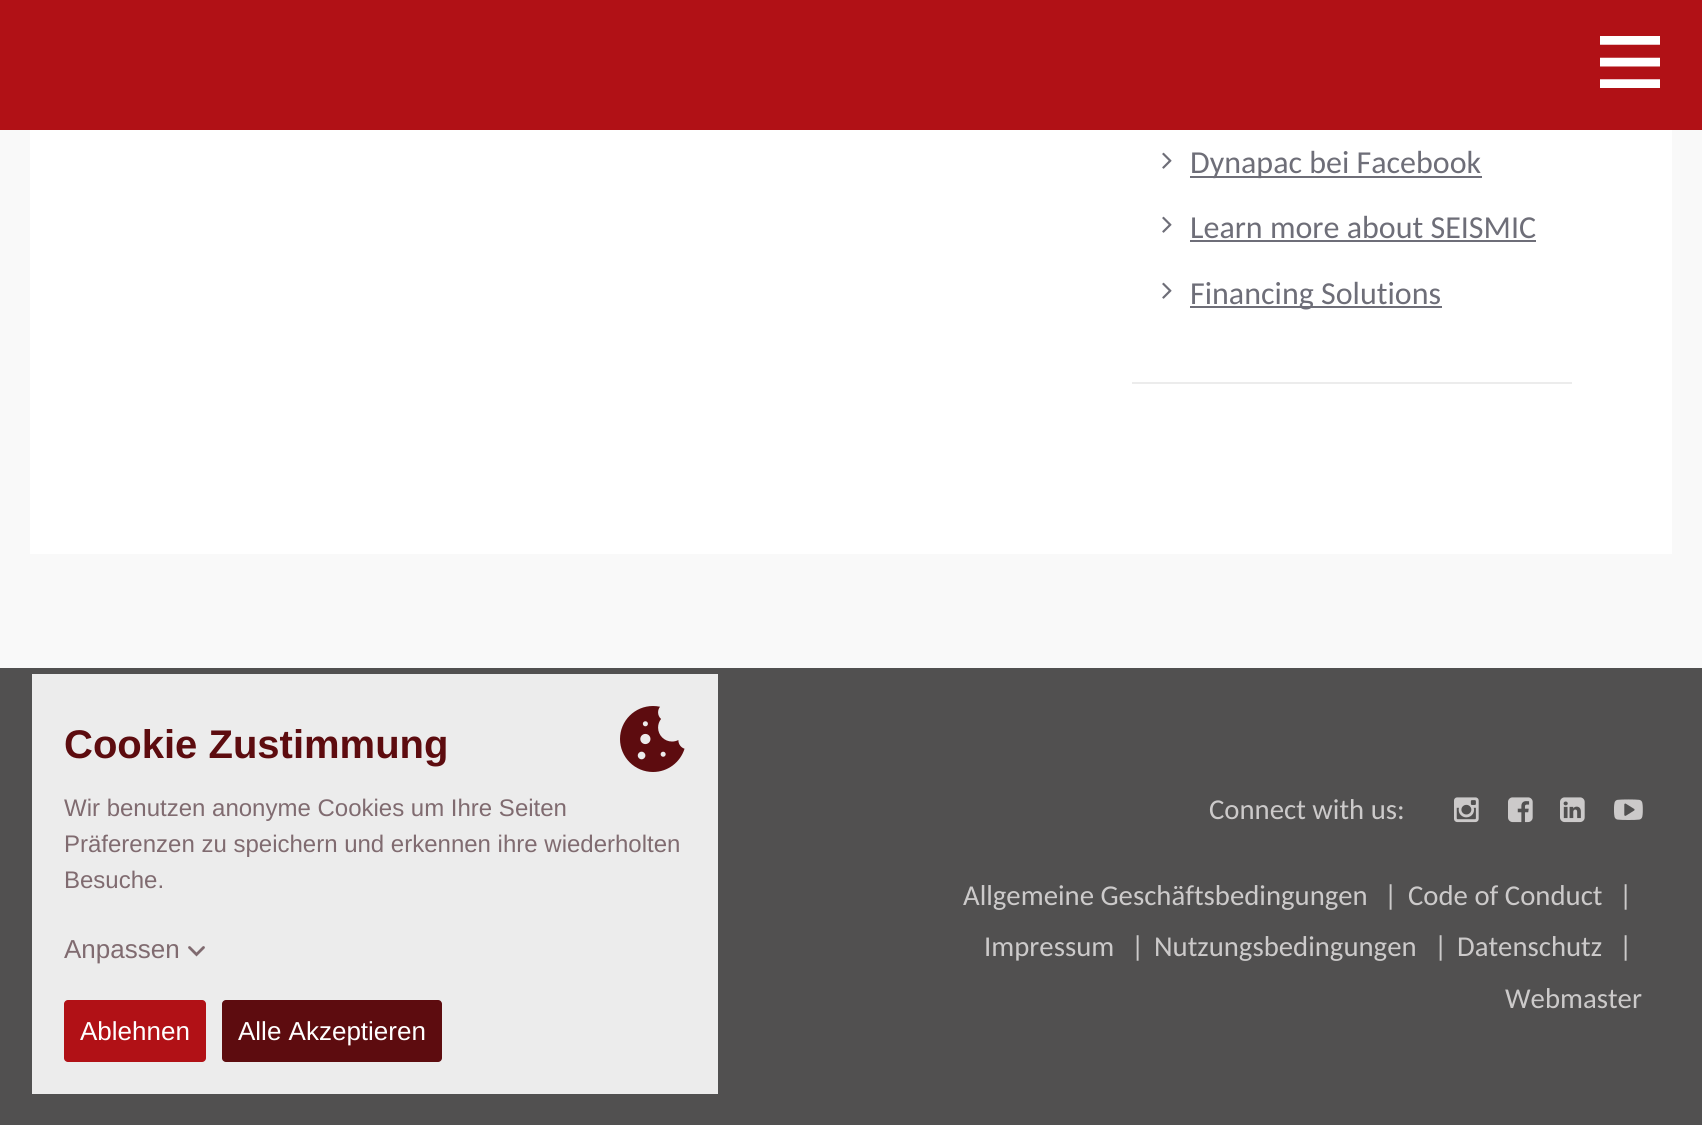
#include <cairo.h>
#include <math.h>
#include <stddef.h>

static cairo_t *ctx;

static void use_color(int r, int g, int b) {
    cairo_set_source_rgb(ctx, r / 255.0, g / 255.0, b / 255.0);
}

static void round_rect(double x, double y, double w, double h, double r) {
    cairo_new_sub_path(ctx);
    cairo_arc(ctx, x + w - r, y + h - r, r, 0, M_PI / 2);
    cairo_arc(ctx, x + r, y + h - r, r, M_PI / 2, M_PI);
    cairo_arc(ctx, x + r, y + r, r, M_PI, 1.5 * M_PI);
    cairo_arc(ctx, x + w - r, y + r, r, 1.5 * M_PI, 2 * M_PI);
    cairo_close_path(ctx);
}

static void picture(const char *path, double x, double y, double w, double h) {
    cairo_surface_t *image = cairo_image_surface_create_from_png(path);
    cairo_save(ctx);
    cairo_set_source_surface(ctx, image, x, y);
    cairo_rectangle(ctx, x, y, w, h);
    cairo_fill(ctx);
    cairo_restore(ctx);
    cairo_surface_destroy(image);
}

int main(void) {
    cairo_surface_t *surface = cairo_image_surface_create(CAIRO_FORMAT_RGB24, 1702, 1125);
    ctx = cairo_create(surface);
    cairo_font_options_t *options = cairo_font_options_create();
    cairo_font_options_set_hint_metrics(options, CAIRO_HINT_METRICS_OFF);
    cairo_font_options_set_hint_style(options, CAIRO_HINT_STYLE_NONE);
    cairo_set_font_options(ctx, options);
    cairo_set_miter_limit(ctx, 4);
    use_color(249, 249, 249);
    cairo_paint(ctx);
    use_color(177, 17, 22);
    cairo_rectangle(ctx, 0, 0, 1702, 130);
    cairo_fill(ctx);
    picture("img1.png", 1600, 36, 60, 52);
    use_color(81, 80, 80);
    cairo_rectangle(ctx, 0, 668, 1702, 457);
    cairo_fill(ctx);
    use_color(236, 236, 236);
    cairo_rectangle(ctx, 32, 674, 686, 420);
    cairo_fill(ctx);
    cairo_select_font_face(ctx, "Liberation Sans", CAIRO_FONT_SLANT_NORMAL, CAIRO_FONT_WEIGHT_BOLD);
    cairo_set_font_size(ctx, 40);
    use_color(93, 12, 15);
    cairo_move_to(ctx, 64, 758);
    cairo_show_text(ctx, "Cookie Zustimmung");
    picture("img2.png", 620, 706, 65, 66);
    cairo_select_font_face(ctx, "Liberation Sans", CAIRO_FONT_SLANT_NORMAL, CAIRO_FONT_WEIGHT_NORMAL);
    cairo_set_font_size(ctx, 24);
    use_color(128, 107, 112);
    cairo_move_to(ctx, 64, 816);
    cairo_show_text(ctx, "Wir benutzen anonyme Cookies um Ihre Seiten");
    cairo_move_to(ctx, 64, 852);
    cairo_show_text(ctx, "Präferenzen zu speichern und erkennen ihre wiederholten");
    cairo_move_to(ctx, 64, 888);
    cairo_show_text(ctx, "Besuche.");
    cairo_set_font_size(ctx, 26);
    cairo_move_to(ctx, 64, 958);
    cairo_show_text(ctx, "Anpassen");
    cairo_new_path(ctx);
    cairo_move_to(ctx, 189.5, 947.5);
    cairo_line_to(ctx, 196.5, 954.5);
    cairo_line_to(ctx, 203.5, 947.5);
    cairo_set_line_width(ctx, 2.8);
    cairo_set_line_cap(ctx, CAIRO_LINE_CAP_ROUND);
    cairo_stroke(ctx);
    use_color(177, 17, 22);
    round_rect(64, 1000, 142, 62, 4);
    cairo_fill(ctx);
    use_color(255, 255, 255);
    cairo_move_to(ctx, 80, 1040);
    cairo_show_text(ctx, "Ablehnen");
    use_color(93, 12, 15);
    round_rect(222, 1000, 220, 62, 4);
    cairo_fill(ctx);
    use_color(255, 255, 255);
    cairo_move_to(ctx, 238, 1040);
    cairo_show_text(ctx, "Alle Akzeptieren");
    cairo_rectangle(ctx, 30, 130, 1642, 424);
    cairo_fill(ctx);
    use_color(236, 236, 236);
    cairo_rectangle(ctx, 1132, 382, 440, 2);
    cairo_fill(ctx);
    picture("img3.png", 1162, 152, 10, 17);
    use_color(110, 110, 120);
    cairo_rectangle(ctx, 1190, 176, 292, 2);
    cairo_fill(ctx);
    cairo_select_font_face(ctx, "Carlito", CAIRO_FONT_SLANT_NORMAL, CAIRO_FONT_WEIGHT_NORMAL);
    cairo_set_font_size(ctx, 32);
    cairo_move_to(ctx, 1190, 173);
    cairo_show_text(ctx, "Dynapac bei Facebook");
    picture("img3.png", 1162, 216, 10, 17);
    cairo_move_to(ctx, 1190, 238);
    cairo_show_text(ctx, "Learn more about SEISMIC");
    cairo_rectangle(ctx, 1190, 240, 346, 2);
    cairo_fill(ctx);
    picture("img3.png", 1162, 282, 10, 17);
    cairo_rectangle(ctx, 1190, 306, 252, 2);
    cairo_fill(ctx);
    cairo_move_to(ctx, 1190, 304);
    cairo_show_text(ctx, "Financing Solutions");
    cairo_set_font_size(ctx, 28.75);
    use_color(204, 202, 202);
    cairo_move_to(ctx, 1209, 819);
    cairo_show_text(ctx, "Connect with us:");
    picture("img4.png", 1454, 797, 25, 26);
    picture("img5.png", 1508, 797, 25, 26);
    picture("img6.png", 1560, 797, 25, 26);
    picture("img7.png", 1614, 799, 29, 21);
    cairo_move_to(ctx, 963, 905);
    cairo_show_text(ctx, "Allgemeine Geschäftsbedingungen");
    cairo_move_to(ctx, 1384, 905);
    cairo_show_text(ctx, "|");
    cairo_move_to(ctx, 1408, 905);
    cairo_show_text(ctx, "Code of Conduct");
    cairo_move_to(ctx, 1619, 905);
    cairo_show_text(ctx, "|");
    cairo_move_to(ctx, 984, 956);
    cairo_show_text(ctx, "Impressum");
    cairo_move_to(ctx, 1131, 956);
    cairo_show_text(ctx, "|");
    cairo_move_to(ctx, 1154, 956);
    cairo_show_text(ctx, "Nutzungsbedingungen");
    cairo_move_to(ctx, 1434, 956);
    cairo_show_text(ctx, "|");
    cairo_move_to(ctx, 1457, 956);
    cairo_show_text(ctx, "Datenschutz");
    cairo_move_to(ctx, 1619, 956);
    cairo_show_text(ctx, "|");
    cairo_move_to(ctx, 1505, 1008);
    cairo_show_text(ctx, "Webmaster");
    cairo_surface_write_to_png(surface, "result.png");
    cairo_font_options_destroy(options);
    cairo_destroy(ctx);
    cairo_surface_destroy(surface);
    return 0;
}
